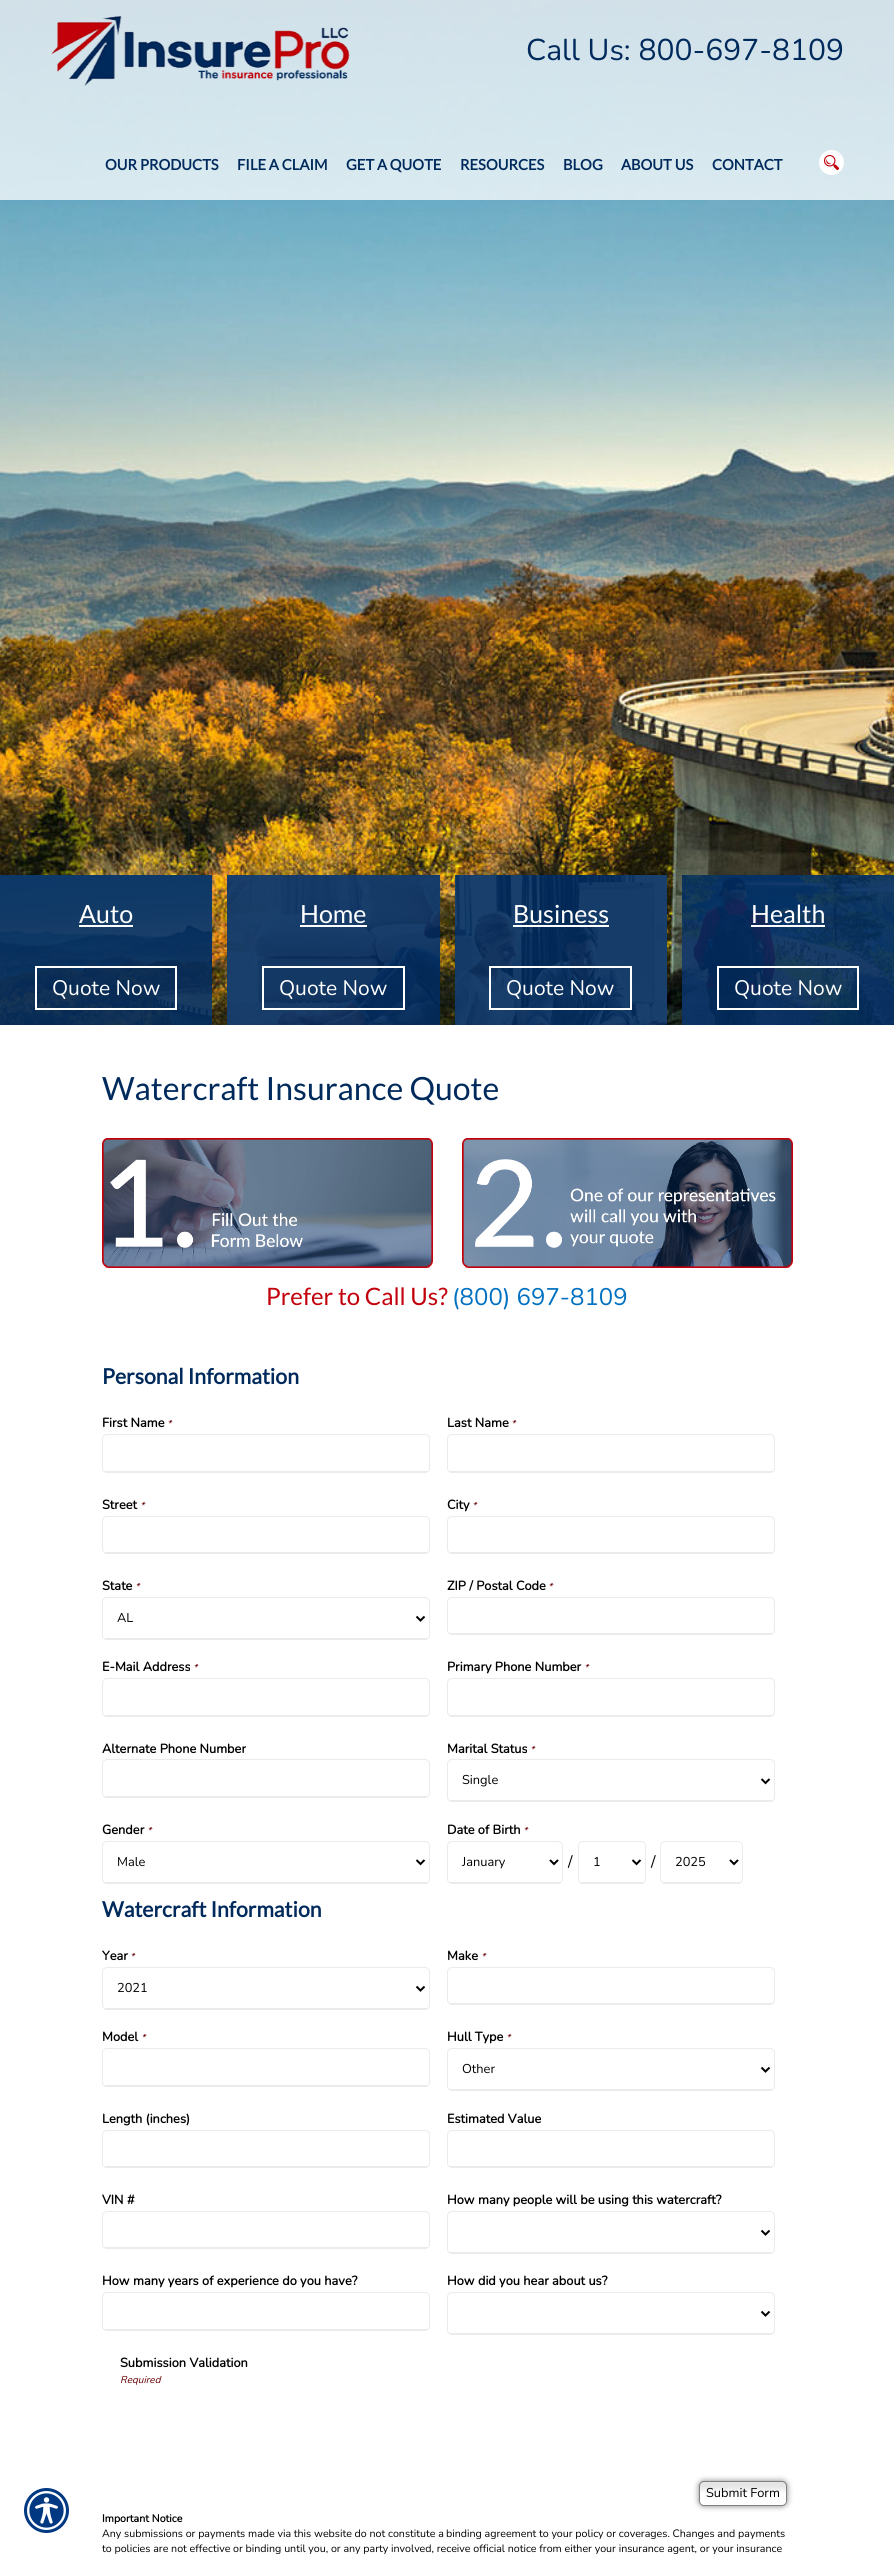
#include <cairo.h>
#include <math.h>
#include <stddef.h>

static cairo_t *ctx;

static void use_color(int r, int g, int b) {
    cairo_set_source_rgb(ctx, r / 255.0, g / 255.0, b / 255.0);
}

static void round_rect(double x, double y, double w, double h, double r) {
    cairo_new_sub_path(ctx);
    cairo_arc(ctx, x + w - r, y + h - r, r, 0, M_PI / 2);
    cairo_arc(ctx, x + r, y + h - r, r, M_PI / 2, M_PI);
    cairo_arc(ctx, x + r, y + r, r, M_PI, 1.5 * M_PI);
    cairo_arc(ctx, x + w - r, y + r, r, 1.5 * M_PI, 2 * M_PI);
    cairo_close_path(ctx);
}

static void shadow(double x, double y, double w, double h, double r, double blur, double alpha) {
    cairo_push_group_with_content(ctx, CAIRO_CONTENT_ALPHA);
    cairo_set_operator(ctx, CAIRO_OPERATOR_SOURCE);
    for (int i = 15; i >= -15 && fmin(w, h) + blur * i / 3 > 0; i -= 2) {
        double e = blur * i / 6;
        cairo_set_source_rgba(ctx, 0, 0, 0, alpha * erfc((i - 1) / 8.5) / 2);
        round_rect(x - e, y - e, w + 2 * e, h + 2 * e, fmax(0, fmin(r + e + blur * .6, fmin(w, h) / 2 + e)));
        cairo_fill(ctx);
    }
    cairo_pattern_t *soft = cairo_pop_group(ctx);
    cairo_mask(ctx, soft);
    cairo_pattern_destroy(soft);
}

static void picture(const char *path, double x, double y, double w, double h) {
    cairo_surface_t *image = cairo_image_surface_create_from_png(path);
    cairo_save(ctx);
    cairo_set_source_surface(ctx, image, x, y);
    cairo_rectangle(ctx, x, y, w, h);
    cairo_fill(ctx);
    cairo_restore(ctx);
    cairo_surface_destroy(image);
}

int main(void) {
    cairo_surface_t *surface = cairo_image_surface_create(CAIRO_FORMAT_RGB24, 894, 2562);
    ctx = cairo_create(surface);
    cairo_font_options_t *options = cairo_font_options_create();
    cairo_font_options_set_hint_metrics(options, CAIRO_HINT_METRICS_OFF);
    cairo_font_options_set_hint_style(options, CAIRO_HINT_STYLE_NONE);
    cairo_set_font_options(ctx, options);
    cairo_set_miter_limit(ctx, 4);
    use_color(255, 255, 255);
    cairo_paint(ctx);
    picture("img1.png", 24, 2488, 45, 45);
    picture("img2.png", 0, 0, 894, 1025);
    cairo_set_source_rgba(ctx, 1, 1, 1, 0.75);
    cairo_rectangle(ctx, 0, 0, 894, 200);
    cairo_fill(ctx);
    picture("img3.png", 51, 15, 299, 71);
    cairo_select_font_face(ctx, "Nunito ExtraLight", CAIRO_FONT_SLANT_NORMAL, CAIRO_FONT_WEIGHT_NORMAL);
    cairo_set_font_size(ctx, 30);
    use_color(0, 42, 92);
    cairo_move_to(ctx, 526, 60);
    cairo_show_text(ctx, "Call Us: 800-697-8109");
    cairo_select_font_face(ctx, "Lato", CAIRO_FONT_SLANT_NORMAL, CAIRO_FONT_WEIGHT_BOLD);
    cairo_set_font_size(ctx, 14.75);
    cairo_move_to(ctx, 105, 170);
    cairo_show_text(ctx, "OUR PRODUCTS");
    cairo_move_to(ctx, 237, 170);
    cairo_show_text(ctx, "FILE A CLAIM");
    cairo_move_to(ctx, 346, 170);
    cairo_show_text(ctx, "GET A QUOTE");
    cairo_move_to(ctx, 460, 170);
    cairo_show_text(ctx, "RESOURCES");
    cairo_move_to(ctx, 563, 170);
    cairo_show_text(ctx, "BLOG");
    cairo_move_to(ctx, 621, 170);
    cairo_show_text(ctx, "ABOUT US");
    cairo_move_to(ctx, 712, 170);
    cairo_show_text(ctx, "CONTACT");
    use_color(255, 255, 255);
    cairo_new_path(ctx);
    cairo_arc(ctx, 831.5, 162.5, 12.5, 0, 2 * M_PI);
    cairo_fill(ctx);
    picture("img4.png", 824, 155, 15, 15);
    picture("img5.png", 0, 875, 212, 150);
    cairo_select_font_face(ctx, "Lato", CAIRO_FONT_SLANT_NORMAL, CAIRO_FONT_WEIGHT_NORMAL);
    cairo_set_font_size(ctx, 25);
    cairo_move_to(ctx, 79, 923);
    cairo_show_text(ctx, "Auto");
    cairo_rectangle(ctx, 79, 925, 54, 2);
    cairo_fill(ctx);
    cairo_rectangle(ctx, 36, 967, 140, 42);
    cairo_stroke(ctx);
    cairo_select_font_face(ctx, "Nunito ExtraLight", CAIRO_FONT_SLANT_NORMAL, CAIRO_FONT_WEIGHT_NORMAL);
    cairo_set_font_size(ctx, 21);
    cairo_move_to(ctx, 52, 995);
    cairo_show_text(ctx, "Quote Now");
    picture("img6.png", 227, 875, 213, 150);
    cairo_select_font_face(ctx, "Lato", CAIRO_FONT_SLANT_NORMAL, CAIRO_FONT_WEIGHT_NORMAL);
    cairo_set_font_size(ctx, 25);
    cairo_move_to(ctx, 300, 923);
    cairo_show_text(ctx, "Home");
    cairo_rectangle(ctx, 300, 925, 67, 2);
    cairo_fill(ctx);
    cairo_rectangle(ctx, 263, 967, 141, 42);
    cairo_stroke(ctx);
    cairo_select_font_face(ctx, "Nunito ExtraLight", CAIRO_FONT_SLANT_NORMAL, CAIRO_FONT_WEIGHT_NORMAL);
    cairo_set_font_size(ctx, 21);
    cairo_move_to(ctx, 279, 995);
    cairo_show_text(ctx, "Quote Now");
    picture("img7.png", 455, 875, 212, 150);
    cairo_select_font_face(ctx, "Lato", CAIRO_FONT_SLANT_NORMAL, CAIRO_FONT_WEIGHT_NORMAL);
    cairo_set_font_size(ctx, 25);
    cairo_move_to(ctx, 513, 923);
    cairo_show_text(ctx, "Business");
    cairo_rectangle(ctx, 513, 925, 96, 2);
    cairo_fill(ctx);
    cairo_rectangle(ctx, 490, 967, 141, 42);
    cairo_stroke(ctx);
    cairo_select_font_face(ctx, "Nunito ExtraLight", CAIRO_FONT_SLANT_NORMAL, CAIRO_FONT_WEIGHT_NORMAL);
    cairo_set_font_size(ctx, 21);
    cairo_move_to(ctx, 506, 995);
    cairo_show_text(ctx, "Quote Now");
    picture("img8.png", 682, 875, 212, 150);
    cairo_select_font_face(ctx, "Lato", CAIRO_FONT_SLANT_NORMAL, CAIRO_FONT_WEIGHT_NORMAL);
    cairo_set_font_size(ctx, 25);
    cairo_move_to(ctx, 751, 923);
    cairo_show_text(ctx, "Health");
    cairo_rectangle(ctx, 751, 925, 74, 2);
    cairo_fill(ctx);
    cairo_rectangle(ctx, 718, 967, 140, 42);
    cairo_stroke(ctx);
    cairo_select_font_face(ctx, "Nunito ExtraLight", CAIRO_FONT_SLANT_NORMAL, CAIRO_FONT_WEIGHT_NORMAL);
    cairo_set_font_size(ctx, 21);
    cairo_move_to(ctx, 734, 995);
    cairo_show_text(ctx, "Quote Now");
    cairo_select_font_face(ctx, "Lato", CAIRO_FONT_SLANT_NORMAL, CAIRO_FONT_WEIGHT_NORMAL);
    cairo_set_font_size(ctx, 32);
    use_color(0, 42, 92);
    cairo_move_to(ctx, 102, 1100);
    cairo_show_text(ctx, "Watercraft Insurance Quote");
    picture("img9.png", 102, 1138, 331, 130);
    picture("img10.png", 462, 1138, 331, 130);
    cairo_set_font_size(ctx, 24);
    use_color(194, 0, 11);
    cairo_move_to(ctx, 266, 1305);
    cairo_show_text(ctx, "Prefer to Call Us?");
    cairo_select_font_face(ctx, "Nunito ExtraLight", CAIRO_FONT_SLANT_NORMAL, CAIRO_FONT_WEIGHT_NORMAL);
    use_color(0, 112, 192);
    cairo_move_to(ctx, 452, 1305);
    cairo_show_text(ctx, "(800) 697-8109");
    cairo_select_font_face(ctx, "Lato", CAIRO_FONT_SLANT_NORMAL, CAIRO_FONT_WEIGHT_BOLD);
    cairo_set_font_size(ctx, 21.25);
    use_color(0, 42, 92);
    cairo_move_to(ctx, 102, 1384);
    cairo_show_text(ctx, "Personal Information");
    cairo_select_font_face(ctx, "Nunito", CAIRO_FONT_SLANT_NORMAL, CAIRO_FONT_WEIGHT_BOLD);
    cairo_set_font_size(ctx, 12.8);
    use_color(0, 0, 0);
    cairo_move_to(ctx, 102, 1427);
    cairo_show_text(ctx, "First Name");
    cairo_select_font_face(ctx, "Nunito ExtraLight", CAIRO_FONT_SLANT_ITALIC, CAIRO_FONT_WEIGHT_NORMAL);
    cairo_set_font_size(ctx, 10);
    use_color(102, 0, 0);
    cairo_move_to(ctx, 167, 1427);
    cairo_show_text(ctx, "*");
    round_rect(102.5, 1434.5, 327, 38, 4.5);
    use_color(235, 235, 235);
    cairo_set_line_width(ctx, 1);
    cairo_stroke(ctx);
    cairo_rectangle(ctx, 105, 1471, 323, 1);
    cairo_fill(ctx);
    cairo_select_font_face(ctx, "Nunito", CAIRO_FONT_SLANT_NORMAL, CAIRO_FONT_WEIGHT_BOLD);
    cairo_set_font_size(ctx, 12.8);
    use_color(0, 0, 0);
    cairo_move_to(ctx, 447, 1427);
    cairo_show_text(ctx, "Last Name");
    cairo_select_font_face(ctx, "Nunito ExtraLight", CAIRO_FONT_SLANT_ITALIC, CAIRO_FONT_WEIGHT_NORMAL);
    cairo_set_font_size(ctx, 10);
    use_color(102, 0, 0);
    cairo_move_to(ctx, 511, 1427);
    cairo_show_text(ctx, "*");
    round_rect(447.5, 1434.5, 327, 38, 4.5);
    use_color(235, 235, 235);
    cairo_stroke(ctx);
    cairo_rectangle(ctx, 450, 1471, 323, 1);
    cairo_fill(ctx);
    cairo_select_font_face(ctx, "Nunito", CAIRO_FONT_SLANT_NORMAL, CAIRO_FONT_WEIGHT_BOLD);
    cairo_set_font_size(ctx, 12.8);
    use_color(0, 0, 0);
    cairo_move_to(ctx, 102, 1509);
    cairo_show_text(ctx, "Street");
    cairo_select_font_face(ctx, "Nunito ExtraLight", CAIRO_FONT_SLANT_ITALIC, CAIRO_FONT_WEIGHT_NORMAL);
    cairo_set_font_size(ctx, 10);
    use_color(102, 0, 0);
    cairo_move_to(ctx, 140, 1509);
    cairo_show_text(ctx, "*");
    round_rect(102.5, 1516.5, 327, 37, 4.5);
    use_color(235, 235, 235);
    cairo_stroke(ctx);
    cairo_rectangle(ctx, 105, 1552, 323, 1);
    cairo_fill(ctx);
    cairo_select_font_face(ctx, "Nunito", CAIRO_FONT_SLANT_NORMAL, CAIRO_FONT_WEIGHT_BOLD);
    cairo_set_font_size(ctx, 12.8);
    use_color(0, 0, 0);
    cairo_move_to(ctx, 447, 1509);
    cairo_show_text(ctx, "City");
    cairo_select_font_face(ctx, "Nunito ExtraLight", CAIRO_FONT_SLANT_ITALIC, CAIRO_FONT_WEIGHT_NORMAL);
    cairo_set_font_size(ctx, 10);
    use_color(102, 0, 0);
    cairo_move_to(ctx, 472, 1509);
    cairo_show_text(ctx, "*");
    round_rect(447.5, 1516.5, 327, 37, 4.5);
    use_color(235, 235, 235);
    cairo_stroke(ctx);
    cairo_rectangle(ctx, 450, 1552, 323, 1);
    cairo_fill(ctx);
    cairo_select_font_face(ctx, "Nunito", CAIRO_FONT_SLANT_NORMAL, CAIRO_FONT_WEIGHT_BOLD);
    cairo_set_font_size(ctx, 12.8);
    use_color(0, 0, 0);
    cairo_move_to(ctx, 102, 1590);
    cairo_show_text(ctx, "State");
    cairo_select_font_face(ctx, "Nunito ExtraLight", CAIRO_FONT_SLANT_ITALIC, CAIRO_FONT_WEIGHT_NORMAL);
    cairo_set_font_size(ctx, 10);
    use_color(102, 0, 0);
    cairo_move_to(ctx, 135, 1590);
    cairo_show_text(ctx, "*");
    round_rect(102.5, 1597.5, 327, 42, 4.5);
    use_color(235, 235, 235);
    cairo_stroke(ctx);
    cairo_rectangle(ctx, 105, 1638, 323, 1);
    cairo_fill(ctx);
    cairo_new_path(ctx);
    cairo_move_to(ctx, 416.5, 1616.5);
    cairo_line_to(ctx, 420.5, 1620.5);
    cairo_line_to(ctx, 424.5, 1616.5);
    use_color(0, 0, 0);
    cairo_set_line_width(ctx, 2);
    cairo_stroke(ctx);
    cairo_select_font_face(ctx, "Nunito ExtraLight", CAIRO_FONT_SLANT_NORMAL, CAIRO_FONT_WEIGHT_NORMAL);
    cairo_set_font_size(ctx, 12.8);
    cairo_move_to(ctx, 117, 1622);
    cairo_show_text(ctx, "AL");
    cairo_select_font_face(ctx, "Nunito", CAIRO_FONT_SLANT_NORMAL, CAIRO_FONT_WEIGHT_BOLD);
    cairo_move_to(ctx, 447, 1590);
    cairo_show_text(ctx, "ZIP / Postal Code");
    cairo_select_font_face(ctx, "Nunito ExtraLight", CAIRO_FONT_SLANT_ITALIC, CAIRO_FONT_WEIGHT_NORMAL);
    cairo_set_font_size(ctx, 10);
    use_color(102, 0, 0);
    cairo_move_to(ctx, 548, 1590);
    cairo_show_text(ctx, "*");
    round_rect(447.5, 1597.5, 327, 37, 4.5);
    use_color(235, 235, 235);
    cairo_set_line_width(ctx, 1);
    cairo_stroke(ctx);
    cairo_rectangle(ctx, 450, 1633, 323, 1);
    cairo_fill(ctx);
    cairo_select_font_face(ctx, "Nunito", CAIRO_FONT_SLANT_NORMAL, CAIRO_FONT_WEIGHT_BOLD);
    cairo_set_font_size(ctx, 12.8);
    use_color(0, 0, 0);
    cairo_move_to(ctx, 102, 1671);
    cairo_show_text(ctx, "E-Mail Address");
    cairo_select_font_face(ctx, "Nunito ExtraLight", CAIRO_FONT_SLANT_ITALIC, CAIRO_FONT_WEIGHT_NORMAL);
    cairo_set_font_size(ctx, 10);
    use_color(102, 0, 0);
    cairo_move_to(ctx, 193, 1671);
    cairo_show_text(ctx, "*");
    round_rect(102.5, 1678.5, 327, 38, 4.5);
    use_color(235, 235, 235);
    cairo_stroke(ctx);
    cairo_rectangle(ctx, 105, 1715, 323, 1);
    cairo_fill(ctx);
    cairo_select_font_face(ctx, "Nunito", CAIRO_FONT_SLANT_NORMAL, CAIRO_FONT_WEIGHT_BOLD);
    cairo_set_font_size(ctx, 12.8);
    use_color(0, 0, 0);
    cairo_move_to(ctx, 447, 1671);
    cairo_show_text(ctx, "Primary Phone Number");
    cairo_select_font_face(ctx, "Nunito ExtraLight", CAIRO_FONT_SLANT_ITALIC, CAIRO_FONT_WEIGHT_NORMAL);
    cairo_set_font_size(ctx, 10);
    use_color(102, 0, 0);
    cairo_move_to(ctx, 584, 1671);
    cairo_show_text(ctx, "*");
    round_rect(447.5, 1678.5, 327, 38, 4.5);
    use_color(235, 235, 235);
    cairo_stroke(ctx);
    cairo_rectangle(ctx, 450, 1715, 323, 1);
    cairo_fill(ctx);
    cairo_select_font_face(ctx, "Nunito", CAIRO_FONT_SLANT_NORMAL, CAIRO_FONT_WEIGHT_BOLD);
    cairo_set_font_size(ctx, 12.8);
    use_color(0, 0, 0);
    cairo_move_to(ctx, 102, 1753);
    cairo_show_text(ctx, "Alternate Phone Number");
    round_rect(102.5, 1759.5, 327, 38, 4.5);
    use_color(235, 235, 235);
    cairo_stroke(ctx);
    cairo_rectangle(ctx, 105, 1796, 323, 1);
    cairo_fill(ctx);
    use_color(0, 0, 0);
    cairo_move_to(ctx, 447, 1753);
    cairo_show_text(ctx, "Marital Status");
    cairo_select_font_face(ctx, "Nunito ExtraLight", CAIRO_FONT_SLANT_ITALIC, CAIRO_FONT_WEIGHT_NORMAL);
    cairo_set_font_size(ctx, 10);
    use_color(102, 0, 0);
    cairo_move_to(ctx, 530, 1753);
    cairo_show_text(ctx, "*");
    round_rect(447.5, 1759.5, 327, 42, 4.5);
    use_color(235, 235, 235);
    cairo_stroke(ctx);
    cairo_rectangle(ctx, 450, 1800, 323, 1);
    cairo_fill(ctx);
    cairo_new_path(ctx);
    cairo_move_to(ctx, 761.5, 1779);
    cairo_line_to(ctx, 765.5, 1783);
    cairo_line_to(ctx, 769.5, 1779);
    use_color(0, 0, 0);
    cairo_set_line_width(ctx, 2);
    cairo_stroke(ctx);
    cairo_select_font_face(ctx, "Nunito ExtraLight", CAIRO_FONT_SLANT_NORMAL, CAIRO_FONT_WEIGHT_NORMAL);
    cairo_set_font_size(ctx, 12.8);
    cairo_move_to(ctx, 462, 1784);
    cairo_show_text(ctx, "Single");
    cairo_select_font_face(ctx, "Nunito", CAIRO_FONT_SLANT_NORMAL, CAIRO_FONT_WEIGHT_BOLD);
    cairo_move_to(ctx, 102, 1834);
    cairo_show_text(ctx, "Gender");
    cairo_select_font_face(ctx, "Nunito ExtraLight", CAIRO_FONT_SLANT_ITALIC, CAIRO_FONT_WEIGHT_NORMAL);
    cairo_set_font_size(ctx, 10);
    use_color(102, 0, 0);
    cairo_move_to(ctx, 147, 1834);
    cairo_show_text(ctx, "*");
    round_rect(102.5, 1841.5, 327, 42, 4.5);
    use_color(235, 235, 235);
    cairo_set_line_width(ctx, 1);
    cairo_stroke(ctx);
    cairo_rectangle(ctx, 105, 1882, 323, 1);
    cairo_fill(ctx);
    cairo_new_path(ctx);
    cairo_move_to(ctx, 416.5, 1860);
    cairo_line_to(ctx, 420.5, 1864);
    cairo_line_to(ctx, 424.5, 1860);
    use_color(0, 0, 0);
    cairo_set_line_width(ctx, 2);
    cairo_stroke(ctx);
    cairo_select_font_face(ctx, "Nunito ExtraLight", CAIRO_FONT_SLANT_NORMAL, CAIRO_FONT_WEIGHT_NORMAL);
    cairo_set_font_size(ctx, 12.8);
    cairo_move_to(ctx, 117, 1866);
    cairo_show_text(ctx, "Male");
    cairo_select_font_face(ctx, "Nunito", CAIRO_FONT_SLANT_NORMAL, CAIRO_FONT_WEIGHT_BOLD);
    cairo_move_to(ctx, 447, 1834);
    cairo_show_text(ctx, "Date of Birth");
    cairo_select_font_face(ctx, "Nunito ExtraLight", CAIRO_FONT_SLANT_ITALIC, CAIRO_FONT_WEIGHT_NORMAL);
    cairo_set_font_size(ctx, 10);
    use_color(102, 0, 0);
    cairo_move_to(ctx, 523, 1834);
    cairo_show_text(ctx, "*");
    round_rect(447.5, 1841.5, 115, 42, 4.5);
    use_color(235, 235, 235);
    cairo_set_line_width(ctx, 1);
    cairo_stroke(ctx);
    cairo_rectangle(ctx, 450, 1882, 111, 1);
    cairo_fill(ctx);
    cairo_new_path(ctx);
    cairo_move_to(ctx, 550, 1860);
    cairo_line_to(ctx, 554, 1864);
    cairo_line_to(ctx, 558, 1860);
    use_color(0, 0, 0);
    cairo_set_line_width(ctx, 2);
    cairo_stroke(ctx);
    cairo_select_font_face(ctx, "Nunito ExtraLight", CAIRO_FONT_SLANT_NORMAL, CAIRO_FONT_WEIGHT_NORMAL);
    cairo_set_font_size(ctx, 12.8);
    cairo_move_to(ctx, 462, 1866);
    cairo_show_text(ctx, "January");
    cairo_set_font_size(ctx, 16);
    cairo_move_to(ctx, 568, 1867);
    cairo_show_text(ctx, "/");
    round_rect(578.5, 1841.5, 67, 42, 4.5);
    use_color(235, 235, 235);
    cairo_set_line_width(ctx, 1);
    cairo_stroke(ctx);
    cairo_rectangle(ctx, 581, 1882, 63, 1);
    cairo_fill(ctx);
    cairo_new_path(ctx);
    cairo_move_to(ctx, 632.5, 1860);
    cairo_line_to(ctx, 636.5, 1864);
    cairo_line_to(ctx, 640.5, 1860);
    use_color(0, 0, 0);
    cairo_set_line_width(ctx, 2);
    cairo_stroke(ctx);
    cairo_set_font_size(ctx, 12.8);
    cairo_move_to(ctx, 593, 1866);
    cairo_show_text(ctx, "1");
    cairo_set_font_size(ctx, 16);
    cairo_move_to(ctx, 651, 1867);
    cairo_show_text(ctx, "/");
    round_rect(660.5, 1841.5, 82, 42, 4.5);
    use_color(235, 235, 235);
    cairo_set_line_width(ctx, 1);
    cairo_stroke(ctx);
    cairo_rectangle(ctx, 663, 1882, 78, 1);
    cairo_fill(ctx);
    cairo_new_path(ctx);
    cairo_move_to(ctx, 730, 1860);
    cairo_line_to(ctx, 734, 1864);
    cairo_line_to(ctx, 738, 1860);
    use_color(0, 0, 0);
    cairo_set_line_width(ctx, 2);
    cairo_stroke(ctx);
    cairo_set_font_size(ctx, 12.8);
    cairo_move_to(ctx, 675, 1866);
    cairo_show_text(ctx, "2025");
    cairo_select_font_face(ctx, "Lato", CAIRO_FONT_SLANT_NORMAL, CAIRO_FONT_WEIGHT_BOLD);
    cairo_set_font_size(ctx, 21.25);
    use_color(0, 42, 92);
    cairo_move_to(ctx, 102, 1917);
    cairo_show_text(ctx, "Watercraft Information");
    cairo_select_font_face(ctx, "Nunito", CAIRO_FONT_SLANT_NORMAL, CAIRO_FONT_WEIGHT_BOLD);
    cairo_set_font_size(ctx, 12.8);
    use_color(0, 0, 0);
    cairo_move_to(ctx, 102, 1960);
    cairo_show_text(ctx, "Year");
    cairo_select_font_face(ctx, "Nunito ExtraLight", CAIRO_FONT_SLANT_ITALIC, CAIRO_FONT_WEIGHT_NORMAL);
    cairo_set_font_size(ctx, 10);
    use_color(102, 0, 0);
    cairo_move_to(ctx, 130, 1960);
    cairo_show_text(ctx, "*");
    round_rect(102.5, 1967.5, 327, 42, 4.5);
    use_color(235, 235, 235);
    cairo_set_line_width(ctx, 1);
    cairo_stroke(ctx);
    cairo_rectangle(ctx, 105, 2008, 323, 1);
    cairo_fill(ctx);
    cairo_new_path(ctx);
    cairo_move_to(ctx, 416.5, 1986.5);
    cairo_line_to(ctx, 420.5, 1990.5);
    cairo_line_to(ctx, 424.5, 1986.5);
    use_color(0, 0, 0);
    cairo_set_line_width(ctx, 2);
    cairo_stroke(ctx);
    cairo_select_font_face(ctx, "Nunito ExtraLight", CAIRO_FONT_SLANT_NORMAL, CAIRO_FONT_WEIGHT_NORMAL);
    cairo_set_font_size(ctx, 12.8);
    cairo_move_to(ctx, 117, 1992);
    cairo_show_text(ctx, "2021");
    cairo_select_font_face(ctx, "Nunito", CAIRO_FONT_SLANT_NORMAL, CAIRO_FONT_WEIGHT_BOLD);
    cairo_move_to(ctx, 447, 1960);
    cairo_show_text(ctx, "Make");
    cairo_select_font_face(ctx, "Nunito ExtraLight", CAIRO_FONT_SLANT_ITALIC, CAIRO_FONT_WEIGHT_NORMAL);
    cairo_set_font_size(ctx, 10);
    use_color(102, 0, 0);
    cairo_move_to(ctx, 481, 1960);
    cairo_show_text(ctx, "*");
    round_rect(447.5, 1967.5, 327, 37, 4.5);
    use_color(235, 235, 235);
    cairo_set_line_width(ctx, 1);
    cairo_stroke(ctx);
    cairo_rectangle(ctx, 450, 2003, 323, 1);
    cairo_fill(ctx);
    cairo_select_font_face(ctx, "Nunito", CAIRO_FONT_SLANT_NORMAL, CAIRO_FONT_WEIGHT_BOLD);
    cairo_set_font_size(ctx, 12.8);
    use_color(0, 0, 0);
    cairo_move_to(ctx, 102, 2041);
    cairo_show_text(ctx, "Model");
    cairo_select_font_face(ctx, "Nunito ExtraLight", CAIRO_FONT_SLANT_ITALIC, CAIRO_FONT_WEIGHT_NORMAL);
    cairo_set_font_size(ctx, 10);
    use_color(102, 0, 0);
    cairo_move_to(ctx, 141, 2041);
    cairo_show_text(ctx, "*");
    round_rect(102.5, 2048.5, 327, 38, 4.5);
    use_color(235, 235, 235);
    cairo_stroke(ctx);
    cairo_rectangle(ctx, 105, 2085, 323, 1);
    cairo_fill(ctx);
    cairo_select_font_face(ctx, "Nunito", CAIRO_FONT_SLANT_NORMAL, CAIRO_FONT_WEIGHT_BOLD);
    cairo_set_font_size(ctx, 12.8);
    use_color(0, 0, 0);
    cairo_move_to(ctx, 447, 2041);
    cairo_show_text(ctx, "Hull Type");
    cairo_select_font_face(ctx, "Nunito ExtraLight", CAIRO_FONT_SLANT_ITALIC, CAIRO_FONT_WEIGHT_NORMAL);
    cairo_set_font_size(ctx, 10);
    use_color(102, 0, 0);
    cairo_move_to(ctx, 506, 2041);
    cairo_show_text(ctx, "*");
    round_rect(447.5, 2048.5, 327, 42, 4.5);
    use_color(235, 235, 235);
    cairo_stroke(ctx);
    cairo_rectangle(ctx, 450, 2089, 323, 1);
    cairo_fill(ctx);
    cairo_new_path(ctx);
    cairo_move_to(ctx, 761.5, 2067.5);
    cairo_line_to(ctx, 765.5, 2071.5);
    cairo_line_to(ctx, 769.5, 2067.5);
    use_color(0, 0, 0);
    cairo_set_line_width(ctx, 2);
    cairo_stroke(ctx);
    cairo_select_font_face(ctx, "Nunito ExtraLight", CAIRO_FONT_SLANT_NORMAL, CAIRO_FONT_WEIGHT_NORMAL);
    cairo_set_font_size(ctx, 12.8);
    cairo_move_to(ctx, 462, 2073);
    cairo_show_text(ctx, "Other");
    cairo_select_font_face(ctx, "Nunito", CAIRO_FONT_SLANT_NORMAL, CAIRO_FONT_WEIGHT_BOLD);
    cairo_move_to(ctx, 102, 2123);
    cairo_show_text(ctx, "Length (inches)");
    round_rect(102.5, 2130.5, 327, 37, 4.5);
    use_color(235, 235, 235);
    cairo_set_line_width(ctx, 1);
    cairo_stroke(ctx);
    cairo_rectangle(ctx, 105, 2166, 323, 1);
    cairo_fill(ctx);
    use_color(0, 0, 0);
    cairo_move_to(ctx, 447, 2123);
    cairo_show_text(ctx, "Estimated Value");
    round_rect(447.5, 2130.5, 327, 37, 4.5);
    use_color(235, 235, 235);
    cairo_stroke(ctx);
    cairo_rectangle(ctx, 450, 2166, 323, 1);
    cairo_fill(ctx);
    use_color(0, 0, 0);
    cairo_move_to(ctx, 102, 2204);
    cairo_show_text(ctx, "VIN #");
    round_rect(102.5, 2211.5, 327, 37, 4.5);
    use_color(235, 235, 235);
    cairo_stroke(ctx);
    cairo_rectangle(ctx, 105, 2247, 323, 1);
    cairo_fill(ctx);
    use_color(0, 0, 0);
    cairo_move_to(ctx, 447, 2204);
    cairo_show_text(ctx, "How many people will be using this watercraft?");
    round_rect(447.5, 2211.5, 327, 42, 4.5);
    use_color(235, 235, 235);
    cairo_stroke(ctx);
    cairo_rectangle(ctx, 450, 2252, 323, 1);
    cairo_fill(ctx);
    cairo_new_path(ctx);
    cairo_move_to(ctx, 761.5, 2230.5);
    cairo_line_to(ctx, 765.5, 2234.5);
    cairo_line_to(ctx, 769.5, 2230.5);
    use_color(0, 0, 0);
    cairo_set_line_width(ctx, 2);
    cairo_stroke(ctx);
    cairo_move_to(ctx, 102, 2285);
    cairo_show_text(ctx, "How many years of experience do you have?");
    round_rect(102.5, 2292.5, 327, 38, 4.5);
    use_color(235, 235, 235);
    cairo_set_line_width(ctx, 1);
    cairo_stroke(ctx);
    cairo_rectangle(ctx, 105, 2329, 323, 1);
    cairo_fill(ctx);
    use_color(0, 0, 0);
    cairo_move_to(ctx, 447, 2285);
    cairo_show_text(ctx, "How did you hear about us?");
    round_rect(447.5, 2292.5, 327, 42, 4.5);
    use_color(235, 235, 235);
    cairo_stroke(ctx);
    cairo_rectangle(ctx, 450, 2333, 323, 1);
    cairo_fill(ctx);
    cairo_new_path(ctx);
    cairo_move_to(ctx, 761.5, 2311.5);
    cairo_line_to(ctx, 765.5, 2315.5);
    cairo_line_to(ctx, 769.5, 2311.5);
    use_color(0, 0, 0);
    cairo_set_line_width(ctx, 2);
    cairo_stroke(ctx);
    cairo_move_to(ctx, 120, 2367);
    cairo_show_text(ctx, "Submission Validation");
    cairo_select_font_face(ctx, "Nunito ExtraLight", CAIRO_FONT_SLANT_ITALIC, CAIRO_FONT_WEIGHT_NORMAL);
    cairo_set_font_size(ctx, 10);
    use_color(102, 0, 0);
    cairo_move_to(ctx, 120, 2383);
    cairo_show_text(ctx, "Required");
    use_color(128, 128, 128);
    shadow(699, 2481, 88, 25, 5, 3, 1);
    picture("img11.png", 699, 2482, 88, 24);
    round_rect(699.5, 2481.5, 87, 24, 4.5);
    use_color(128, 128, 128);
    cairo_set_line_width(ctx, 1);
    cairo_stroke(ctx);
    cairo_select_font_face(ctx, "Nunito ExtraLight", CAIRO_FONT_SLANT_NORMAL, CAIRO_FONT_WEIGHT_NORMAL);
    cairo_set_font_size(ctx, 12.8);
    use_color(0, 0, 0);
    cairo_move_to(ctx, 706, 2497);
    cairo_show_text(ctx, "Submit Form");
    cairo_select_font_face(ctx, "Nunito", CAIRO_FONT_SLANT_NORMAL, CAIRO_FONT_WEIGHT_BOLD);
    cairo_set_font_size(ctx, 10.67);
    cairo_move_to(ctx, 102, 2522);
    cairo_show_text(ctx, "Important Notice");
    cairo_select_font_face(ctx, "Nunito ExtraLight", CAIRO_FONT_SLANT_NORMAL, CAIRO_FONT_WEIGHT_NORMAL);
    cairo_move_to(ctx, 102, 2537);
    cairo_show_text(ctx, "Any submissions or payments made via this website do not constitute a");
    cairo_move_to(ctx, 446, 2537);
    cairo_show_text(ctx, "binding agreement to your policy or coverages. Changes and payments");
    cairo_move_to(ctx, 102, 2552);
    cairo_show_text(ctx, "to policies are not effective or binding until you, or any party involved, receive official notice from either your insurance agent, or your insurance");
    cairo_surface_write_to_png(surface, "result.png");
    cairo_font_options_destroy(options);
    cairo_destroy(ctx);
    cairo_surface_destroy(surface);
    return 0;
}
